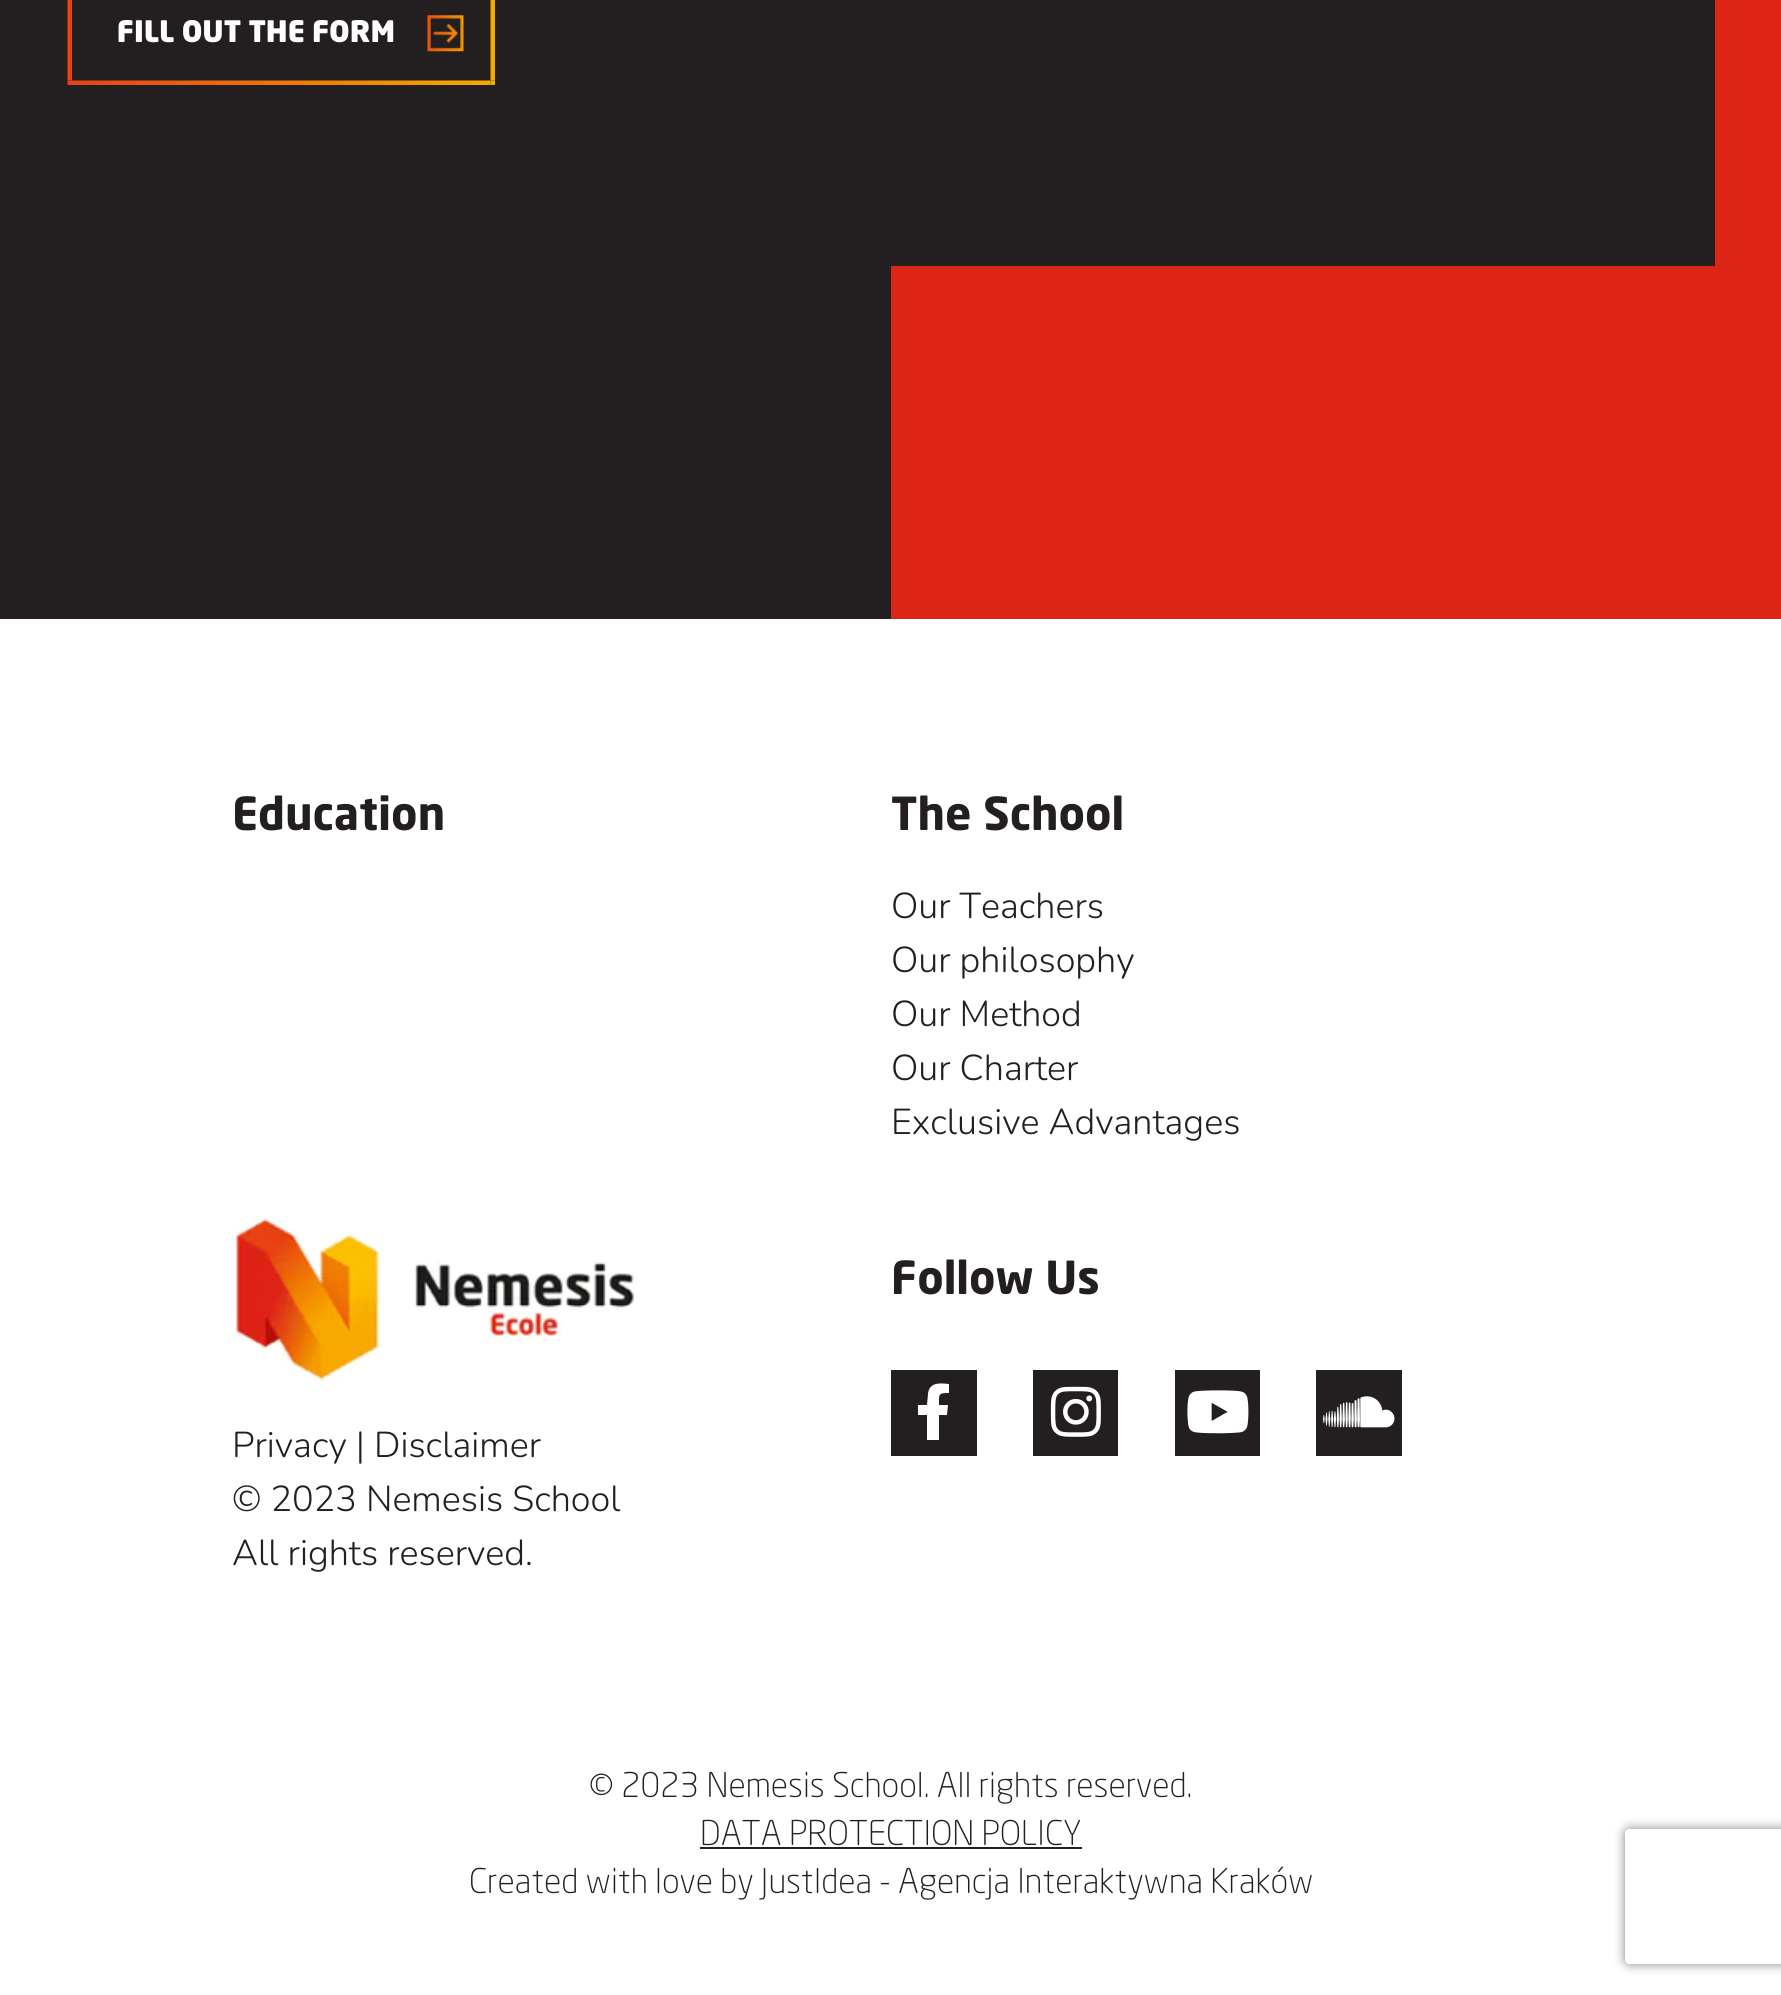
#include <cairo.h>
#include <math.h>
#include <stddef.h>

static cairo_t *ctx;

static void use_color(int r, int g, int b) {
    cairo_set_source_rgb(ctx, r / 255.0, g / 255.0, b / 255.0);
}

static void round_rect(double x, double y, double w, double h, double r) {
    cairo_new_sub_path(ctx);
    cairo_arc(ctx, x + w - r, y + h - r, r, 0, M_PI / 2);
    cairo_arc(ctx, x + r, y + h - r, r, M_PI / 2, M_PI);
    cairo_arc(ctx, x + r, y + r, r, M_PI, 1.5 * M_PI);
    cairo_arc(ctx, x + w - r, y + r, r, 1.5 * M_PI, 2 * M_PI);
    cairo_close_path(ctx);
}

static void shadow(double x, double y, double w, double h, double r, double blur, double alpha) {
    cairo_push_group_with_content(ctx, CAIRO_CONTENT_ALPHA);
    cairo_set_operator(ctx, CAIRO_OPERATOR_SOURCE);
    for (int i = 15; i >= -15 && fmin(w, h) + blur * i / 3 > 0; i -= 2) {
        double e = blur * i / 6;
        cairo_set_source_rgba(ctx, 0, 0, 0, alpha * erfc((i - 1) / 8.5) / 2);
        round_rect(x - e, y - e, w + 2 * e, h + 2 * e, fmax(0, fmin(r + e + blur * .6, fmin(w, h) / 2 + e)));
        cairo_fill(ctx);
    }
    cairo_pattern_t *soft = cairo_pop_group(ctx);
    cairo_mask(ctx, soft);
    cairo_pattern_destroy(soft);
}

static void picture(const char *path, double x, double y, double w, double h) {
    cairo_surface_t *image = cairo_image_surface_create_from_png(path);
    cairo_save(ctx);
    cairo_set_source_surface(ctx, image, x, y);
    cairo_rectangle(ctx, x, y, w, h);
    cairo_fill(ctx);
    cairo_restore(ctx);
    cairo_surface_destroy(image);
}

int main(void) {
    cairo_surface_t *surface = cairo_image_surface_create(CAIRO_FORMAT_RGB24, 1781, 1995);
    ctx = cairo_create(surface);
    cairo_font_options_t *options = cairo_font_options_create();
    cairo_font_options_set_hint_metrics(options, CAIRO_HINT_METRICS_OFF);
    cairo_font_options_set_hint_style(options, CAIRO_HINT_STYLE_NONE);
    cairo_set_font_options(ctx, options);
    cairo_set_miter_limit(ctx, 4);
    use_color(255, 255, 255);
    cairo_paint(ctx);
    use_color(35, 31, 32);
    cairo_rectangle(ctx, 0, 0, 891, 619);
    cairo_fill(ctx);
    use_color(221, 37, 21);
    cairo_rectangle(ctx, 891, 0, 890, 619);
    cairo_fill(ctx);
    use_color(35, 31, 32);
    cairo_rectangle(ctx, 891, 0, 824, 266);
    cairo_fill(ctx);
    picture("img1.png", 67, 0, 428, 85);
    cairo_select_font_face(ctx, "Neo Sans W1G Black", CAIRO_FONT_SLANT_NORMAL, CAIRO_FONT_WEIGHT_NORMAL);
    cairo_set_font_size(ctx, 29.25);
    use_color(255, 255, 255);
    cairo_move_to(ctx, 117, 42);
    cairo_show_text(ctx, "FILL OUT THE FORM");
    picture("img2.png", 427, 15, 37, 37);
    cairo_select_font_face(ctx, "Neo Sans W1G", CAIRO_FONT_SLANT_NORMAL, CAIRO_FONT_WEIGHT_BOLD);
    cairo_set_font_size(ctx, 45);
    use_color(35, 31, 32);
    cairo_move_to(ctx, 232, 830);
    cairo_show_text(ctx, "Education");
    cairo_move_to(ctx, 891, 830);
    cairo_show_text(ctx, "The School");
    cairo_select_font_face(ctx, "Nunito Light", CAIRO_FONT_SLANT_NORMAL, CAIRO_FONT_WEIGHT_NORMAL);
    cairo_set_font_size(ctx, 36);
    cairo_move_to(ctx, 891, 918);
    cairo_show_text(ctx, "Our Teachers");
    cairo_move_to(ctx, 891, 972);
    cairo_show_text(ctx, "Our philosophy");
    cairo_move_to(ctx, 891, 1026);
    cairo_show_text(ctx, "Our Method");
    cairo_move_to(ctx, 891, 1080);
    cairo_show_text(ctx, "Our Charter");
    cairo_move_to(ctx, 891, 1134);
    cairo_show_text(ctx, "Exclusive Advantages");
    cairo_select_font_face(ctx, "Neo Sans W1G", CAIRO_FONT_SLANT_NORMAL, CAIRO_FONT_WEIGHT_BOLD);
    cairo_set_font_size(ctx, 45);
    cairo_move_to(ctx, 891, 1294);
    cairo_show_text(ctx, "Follow Us");
    cairo_rectangle(ctx, 891, 1370, 86, 86);
    cairo_fill(ctx);
    use_color(255, 255, 255);
    cairo_new_path(ctx);
    cairo_move_to(ctx, 947, 1415);
    cairo_line_to(ctx, 939, 1415);
    cairo_line_to(ctx, 939, 1440);
    cairo_line_to(ctx, 927, 1440);
    cairo_line_to(ctx, 927, 1415);
    cairo_line_to(ctx, 918, 1415);
    cairo_line_to(ctx, 918, 1405);
    cairo_line_to(ctx, 927, 1405);
    cairo_line_to(ctx, 928, 1394);
    cairo_curve_to(ctx, 929, 1382, 940, 1383, 949, 1384);
    cairo_line_to(ctx, 949, 1393);
    cairo_curve_to(ctx, 938, 1393, 939, 1394, 939, 1405);
    cairo_line_to(ctx, 948, 1405);
    cairo_close_path(ctx);
    cairo_fill(ctx);
    use_color(35, 31, 32);
    cairo_rectangle(ctx, 1033, 1370, 85, 86);
    cairo_fill(ctx);
    picture("img3.png", 1050, 1386, 51, 51);
    cairo_rectangle(ctx, 1175, 1370, 85, 86);
    cairo_fill(ctx);
    picture("img4.png", 1187, 1390, 62, 44);
    cairo_rectangle(ctx, 1316, 1370, 86, 86);
    cairo_fill(ctx);
    picture("img5.png", 1323, 1396, 72, 32);
    picture("img6.png", 231, 1217, 403, 164);
    cairo_select_font_face(ctx, "Nunito Light", CAIRO_FONT_SLANT_NORMAL, CAIRO_FONT_WEIGHT_NORMAL);
    cairo_set_font_size(ctx, 36);
    cairo_move_to(ctx, 232, 1457);
    cairo_show_text(ctx, "Privacy | Disclaimer");
    cairo_move_to(ctx, 232, 1511);
    cairo_show_text(ctx, "© 2023 Nemesis School");
    cairo_move_to(ctx, 232, 1565);
    cairo_show_text(ctx, "All rights reserved.");
    cairo_select_font_face(ctx, "Neo Sans W1G Light", CAIRO_FONT_SLANT_NORMAL, CAIRO_FONT_WEIGHT_NORMAL);
    cairo_set_font_size(ctx, 33.75);
    cairo_move_to(ctx, 589, 1797);
    cairo_show_text(ctx, "© 2023 Nemesis School. All rights reserved.");
    cairo_move_to(ctx, 700, 1845);
    cairo_show_text(ctx, "DATA PROTECTION POLICY");
    cairo_rectangle(ctx, 700, 1847, 382, 2);
    cairo_fill(ctx);
    cairo_move_to(ctx, 469, 1893);
    cairo_show_text(ctx, "Created with love by JustIdea - Agencja Interaktywna Kraków");
    cairo_save(ctx);
    cairo_set_fill_rule(ctx, CAIRO_FILL_RULE_EVEN_ODD);
    cairo_new_path(ctx);
    cairo_move_to(ctx, 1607, 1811);
    cairo_line_to(ctx, 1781, 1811);
    cairo_line_to(ctx, 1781, 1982);
    cairo_line_to(ctx, 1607, 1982);
    cairo_close_path(ctx);
    cairo_move_to(ctx, 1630, 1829);
    cairo_line_to(ctx, 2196, 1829);
    cairo_curve_to(ctx, 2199, 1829, 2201, 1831, 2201, 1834);
    cairo_line_to(ctx, 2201, 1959);
    cairo_curve_to(ctx, 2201, 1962, 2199, 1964, 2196, 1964);
    cairo_line_to(ctx, 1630, 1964);
    cairo_curve_to(ctx, 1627, 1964, 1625, 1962, 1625, 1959);
    cairo_line_to(ctx, 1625, 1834);
    cairo_curve_to(ctx, 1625, 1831, 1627, 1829, 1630, 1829);
    cairo_close_path(ctx);
    cairo_clip(ctx);
    use_color(128, 128, 128);
    shadow(1625, 1829, 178, 135, 5, 5.5, 1);
    cairo_restore(ctx);
    cairo_surface_write_to_png(surface, "result.png");
    cairo_font_options_destroy(options);
    cairo_destroy(ctx);
    cairo_surface_destroy(surface);
    return 0;
}
